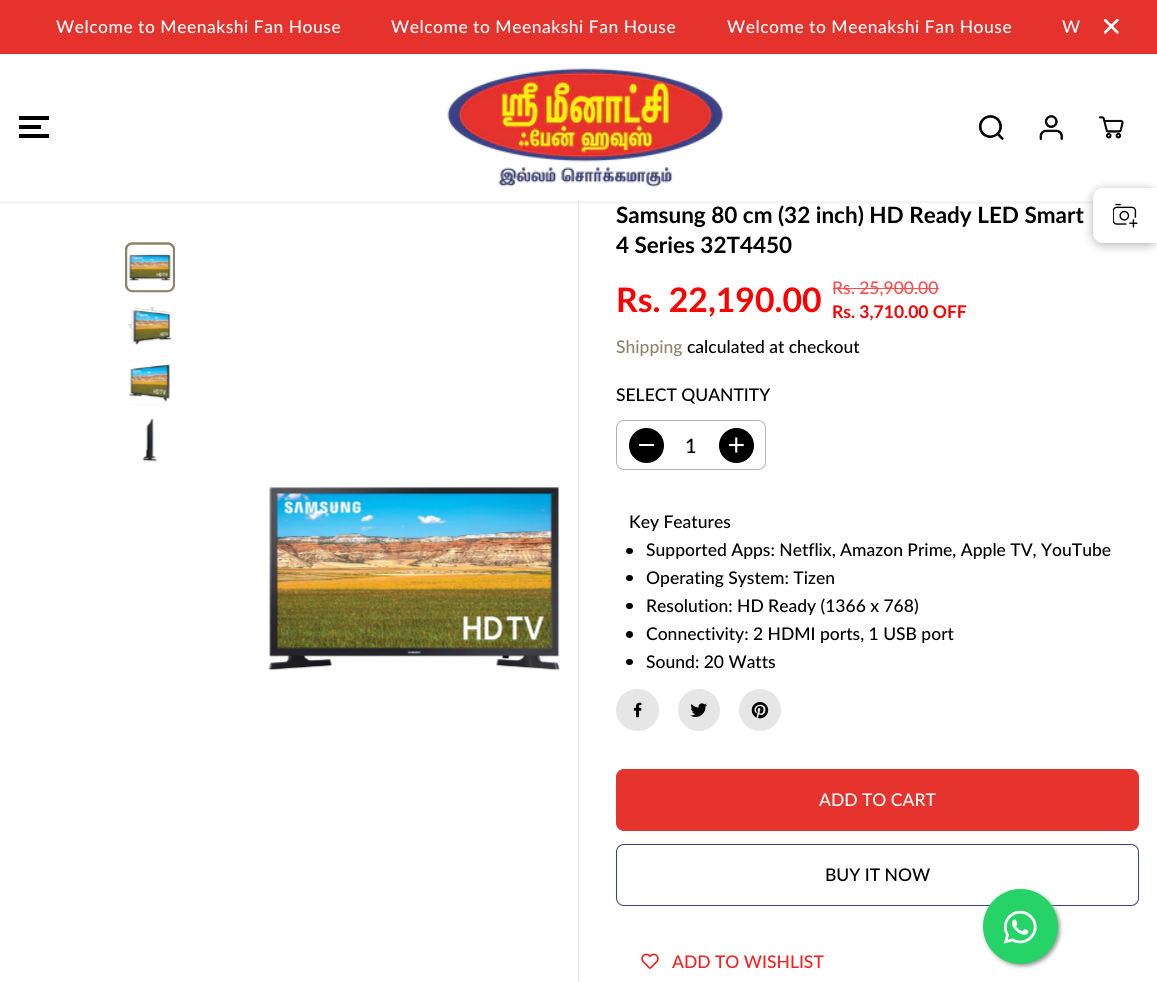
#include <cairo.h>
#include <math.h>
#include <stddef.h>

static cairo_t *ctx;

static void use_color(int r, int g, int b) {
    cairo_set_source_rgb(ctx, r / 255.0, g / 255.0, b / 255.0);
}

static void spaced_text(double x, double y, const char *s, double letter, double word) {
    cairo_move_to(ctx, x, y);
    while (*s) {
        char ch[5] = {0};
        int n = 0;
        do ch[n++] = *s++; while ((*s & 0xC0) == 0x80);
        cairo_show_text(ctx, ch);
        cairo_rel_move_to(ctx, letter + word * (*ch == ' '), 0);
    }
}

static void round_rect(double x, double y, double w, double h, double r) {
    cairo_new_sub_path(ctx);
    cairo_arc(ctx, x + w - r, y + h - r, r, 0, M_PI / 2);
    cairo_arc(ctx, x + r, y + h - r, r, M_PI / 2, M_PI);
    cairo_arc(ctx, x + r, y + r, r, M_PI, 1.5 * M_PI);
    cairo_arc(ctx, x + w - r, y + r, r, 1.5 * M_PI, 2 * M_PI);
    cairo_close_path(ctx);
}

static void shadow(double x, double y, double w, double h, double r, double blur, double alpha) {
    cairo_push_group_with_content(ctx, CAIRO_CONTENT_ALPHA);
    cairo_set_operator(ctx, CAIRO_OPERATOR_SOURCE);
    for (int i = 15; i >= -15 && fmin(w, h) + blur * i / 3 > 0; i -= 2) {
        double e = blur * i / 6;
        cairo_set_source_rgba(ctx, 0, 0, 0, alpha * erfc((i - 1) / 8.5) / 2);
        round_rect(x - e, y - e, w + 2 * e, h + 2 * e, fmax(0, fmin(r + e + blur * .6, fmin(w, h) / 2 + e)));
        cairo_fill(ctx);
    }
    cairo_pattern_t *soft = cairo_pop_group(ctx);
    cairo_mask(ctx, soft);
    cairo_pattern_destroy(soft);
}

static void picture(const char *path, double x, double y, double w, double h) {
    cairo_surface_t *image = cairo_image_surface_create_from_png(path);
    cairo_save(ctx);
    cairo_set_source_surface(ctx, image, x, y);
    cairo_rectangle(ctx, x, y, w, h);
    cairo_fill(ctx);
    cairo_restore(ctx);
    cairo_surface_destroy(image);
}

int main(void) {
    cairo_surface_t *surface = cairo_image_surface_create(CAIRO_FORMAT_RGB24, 1157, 982);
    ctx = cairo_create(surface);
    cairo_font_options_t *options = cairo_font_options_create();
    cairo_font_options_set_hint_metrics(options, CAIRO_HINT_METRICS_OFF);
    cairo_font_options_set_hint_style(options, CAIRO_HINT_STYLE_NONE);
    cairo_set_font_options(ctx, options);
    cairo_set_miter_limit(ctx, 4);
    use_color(255, 255, 255);
    cairo_paint(ctx);
    use_color(230, 50, 45);
    cairo_rectangle(ctx, 0, 0, 1157, 54);
    cairo_fill(ctx);
    cairo_select_font_face(ctx, "Lato Medium", CAIRO_FONT_SLANT_NORMAL, CAIRO_FONT_WEIGHT_NORMAL);
    cairo_set_font_size(ctx, 17.5);
    use_color(255, 255, 255);
    spaced_text(56, 33, "Welcome to Meenakshi Fan House", 0.5, 0);
    spaced_text(391, 33, "Welcome to Meenakshi Fan House", 0.5, 0);
    spaced_text(727, 33, "Welcome to Meenakshi Fan House", 0.5, 0);
    spaced_text(1062, 33, "W", 0.5, 0);
    picture("img1.png", 1104, 19, 15, 15);
    use_color(230, 230, 230);
    cairo_rectangle(ctx, 578, 201, 1, 781);
    cairo_fill(ctx);
    cairo_save(ctx);
    cairo_rectangle(ctx, 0, 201, 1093, 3);
    cairo_clip(ctx);
    use_color(0, 0, 0);
    shadow(0, 56, 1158, 148, 0, 1, 0.05);
    cairo_restore(ctx);
    use_color(0, 0, 0);
    cairo_rectangle(ctx, 19, 125, 22, 4);
    cairo_fill(ctx);
    cairo_rectangle(ctx, 19, 116, 30, 4);
    cairo_fill(ctx);
    cairo_rectangle(ctx, 19, 134, 30, 4);
    cairo_fill(ctx);
    picture("img2.png", 447, 68, 276, 119);
    picture("img3.png", 978, 115, 26, 25);
    picture("img4.png", 1039, 115, 24, 25);
    picture("img5.png", 1098, 116, 26, 23);
    cairo_save(ctx);
    cairo_new_path(ctx);
    cairo_move_to(ctx, 175, 238.5);
    cairo_line_to(ctx, 175, 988.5);
    cairo_line_to(ctx, 125, 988.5);
    cairo_line_to(ctx, 125, 238.5);
    cairo_close_path(ctx);
    cairo_clip(ctx);
    cairo_new_path(ctx);
    cairo_move_to(ctx, 174, 249.5);
    cairo_line_to(ctx, 174, 284.5);
    cairo_curve_to(ctx, 174, 288, 171, 291, 167.5, 291);
    cairo_line_to(ctx, 132.5, 291);
    cairo_curve_to(ctx, 129, 291, 126, 288, 126, 284.5);
    cairo_line_to(ctx, 126, 249.5);
    cairo_curve_to(ctx, 126, 246.5, 129, 243.5, 132.5, 243.5);
    cairo_line_to(ctx, 167.5, 243.5);
    cairo_curve_to(ctx, 171, 243.5, 174, 246.5, 174, 249.5);
    cairo_close_path(ctx);
    use_color(143, 130, 107);
    cairo_set_line_width(ctx, 2.5);
    cairo_stroke(ctx);
    cairo_restore(ctx);
    use_color(243, 239, 236);
    cairo_new_path(ctx);
    cairo_move_to(ctx, 172, 250);
    cairo_curve_to(ctx, 172, 248, 171, 246, 169, 245);
    cairo_line_to(ctx, 131, 245);
    cairo_curve_to(ctx, 130, 245, 129, 246, 128, 248);
    cairo_line_to(ctx, 128, 287);
    cairo_curve_to(ctx, 129, 289, 131, 290, 132, 290);
    cairo_line_to(ctx, 168, 290);
    cairo_curve_to(ctx, 170, 290, 172, 288, 172, 285);
    cairo_close_path(ctx);
    cairo_fill(ctx);
    picture("img6.png", 128, 244, 45, 47);
    cairo_new_path(ctx);
    cairo_move_to(ctx, 172, 307);
    cairo_curve_to(ctx, 172, 305, 172, 304, 170, 303);
    cairo_line_to(ctx, 130, 303);
    cairo_line_to(ctx, 128, 305);
    cairo_line_to(ctx, 128, 344);
    cairo_curve_to(ctx, 129, 346, 131, 347, 132, 347);
    cairo_line_to(ctx, 168, 347);
    cairo_curve_to(ctx, 170, 347, 172, 345, 172, 342);
    cairo_close_path(ctx);
    cairo_fill(ctx);
    picture("img7.png", 128, 303, 44, 44);
    cairo_new_path(ctx);
    cairo_move_to(ctx, 172, 365);
    cairo_curve_to(ctx, 172, 363, 171, 361, 169, 360);
    cairo_line_to(ctx, 131, 360);
    cairo_curve_to(ctx, 130, 360, 129, 361, 128, 363);
    cairo_line_to(ctx, 128, 402);
    cairo_curve_to(ctx, 129, 404, 131, 405, 132, 405);
    cairo_line_to(ctx, 168, 405);
    cairo_curve_to(ctx, 170, 405, 172, 403, 172, 400);
    cairo_close_path(ctx);
    cairo_fill(ctx);
    picture("img8.png", 128, 360, 44, 45);
    cairo_new_path(ctx);
    cairo_move_to(ctx, 172, 422);
    cairo_curve_to(ctx, 172, 420, 172, 419, 170, 418);
    cairo_line_to(ctx, 130, 418);
    cairo_line_to(ctx, 128, 420);
    cairo_line_to(ctx, 128, 459);
    cairo_curve_to(ctx, 129, 461, 131, 462, 132, 462);
    cairo_line_to(ctx, 168, 462);
    cairo_curve_to(ctx, 170, 462, 172, 460, 172, 457);
    cairo_close_path(ctx);
    cairo_fill(ctx);
    picture("img9.png", 128, 418, 44, 44);
    picture("img10.png", 268, 486, 292, 185);
    cairo_select_font_face(ctx, "Lato", CAIRO_FONT_SLANT_NORMAL, CAIRO_FONT_WEIGHT_BOLD);
    cairo_set_font_size(ctx, 22.5);
    use_color(0, 0, 0);
    cairo_move_to(ctx, 616, 223);
    cairo_show_text(ctx, "Samsung 80 cm (32 inch) HD Ready LED Smart");
    cairo_move_to(ctx, 616, 253);
    cairo_show_text(ctx, "4 Series 32T4450");
    cairo_set_font_size(ctx, 33.75);
    use_color(255, 0, 0);
    cairo_move_to(ctx, 616, 312);
    cairo_show_text(ctx, "Rs. 22,190.00");
    cairo_select_font_face(ctx, "Lato Medium", CAIRO_FONT_SLANT_NORMAL, CAIRO_FONT_WEIGHT_NORMAL);
    cairo_set_font_size(ctx, 17.5);
    use_color(255, 77, 77);
    cairo_move_to(ctx, 832, 294);
    cairo_show_text(ctx, "Rs. 25,900.00");
    cairo_rectangle(ctx, 833, 288, 106, 1);
    cairo_fill(ctx);
    cairo_select_font_face(ctx, "Lato", CAIRO_FONT_SLANT_NORMAL, CAIRO_FONT_WEIGHT_BOLD);
    use_color(255, 0, 0);
    cairo_move_to(ctx, 832, 318);
    cairo_show_text(ctx, "Rs. 3,710.00 OFF");
    cairo_select_font_face(ctx, "Lato Medium", CAIRO_FONT_SLANT_NORMAL, CAIRO_FONT_WEIGHT_NORMAL);
    use_color(143, 130, 107);
    cairo_move_to(ctx, 616, 353);
    cairo_show_text(ctx, "Shipping");
    use_color(0, 0, 0);
    cairo_move_to(ctx, 687, 353);
    cairo_show_text(ctx, "calculated at checkout");
    cairo_move_to(ctx, 616, 401);
    cairo_show_text(ctx, "SELECT QUANTITY");
    round_rect(616.5, 420.5, 149, 49, 7.5);
    use_color(179, 179, 179);
    cairo_set_line_width(ctx, 1);
    cairo_stroke(ctx);
    use_color(0, 0, 0);
    cairo_arc(ctx, 646.5, 445.5, 17.5, 0, 2 * M_PI);
    cairo_fill(ctx);
    use_color(255, 255, 255);
    cairo_rectangle(ctx, 639, 444, 15, 2);
    cairo_fill(ctx);
    cairo_set_font_size(ctx, 20);
    use_color(0, 0, 0);
    cairo_move_to(ctx, 685, 453);
    cairo_show_text(ctx, "1");
    cairo_new_path(ctx);
    cairo_arc(ctx, 736.5, 445.5, 17.5, 0, 2 * M_PI);
    cairo_fill(ctx);
    picture("img11.png", 729, 437, 15, 16);
    cairo_set_font_size(ctx, 17.5);
    cairo_move_to(ctx, 629, 528);
    cairo_show_text(ctx, "Key Features");
    round_rect(626, 548, 7, 6, 3);
    cairo_fill(ctx);
    cairo_move_to(ctx, 646, 556);
    cairo_show_text(ctx, "Supported Apps: Netflix, Amazon Prime, Apple TV, YouTube");
    round_rect(626, 575, 7, 6, 3);
    cairo_fill(ctx);
    cairo_move_to(ctx, 646, 584);
    cairo_show_text(ctx, "Operating System: Tizen");
    round_rect(626, 603, 7, 6, 3);
    cairo_fill(ctx);
    cairo_move_to(ctx, 646, 612);
    cairo_show_text(ctx, "Resolution: HD Ready (1366 x 768)");
    cairo_new_path(ctx);
    cairo_arc(ctx, 629.5, 634.5, 3.5, 0, 2 * M_PI);
    cairo_fill(ctx);
    cairo_move_to(ctx, 646, 640);
    cairo_show_text(ctx, "Connectivity: 2 HDMI ports, 1 USB port");
    round_rect(626, 659, 7, 6, 3);
    cairo_fill(ctx);
    cairo_move_to(ctx, 646, 668);
    cairo_show_text(ctx, "Sound: 20 Watts");
    use_color(230, 230, 230);
    round_rect(616, 689, 43, 42, 21);
    cairo_fill(ctx);
    picture("img12.png", 633, 702, 9, 16);
    cairo_arc(ctx, 699, 710, 21, 0, 2 * M_PI);
    cairo_fill(ctx);
    picture("img13.png", 690, 703, 17, 14);
    cairo_arc(ctx, 760, 710, 21, 0, 2 * M_PI);
    cairo_fill(ctx);
    picture("img14.png", 751, 702, 18, 17);
    use_color(231, 51, 46);
    round_rect(616.5, 769.5, 522, 61, 7.5);
    cairo_fill_preserve(ctx);
    cairo_stroke(ctx);
    use_color(255, 255, 255);
    cairo_move_to(ctx, 819, 806);
    cairo_show_text(ctx, "ADD TO CART");
    round_rect(616.5, 844.5, 522, 61, 7.5);
    use_color(57, 66, 134);
    cairo_stroke(ctx);
    use_color(0, 0, 0);
    cairo_move_to(ctx, 825, 881);
    cairo_show_text(ctx, "BUY IT NOW");
    picture("img15.png", 641, 953, 18, 16);
    use_color(246, 32, 32);
    cairo_move_to(ctx, 672, 968);
    cairo_show_text(ctx, "ADD TO WISHLIST");
    use_color(0, 0, 0);
    shadow(1093, 190, 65, 55, 10, 5, 0.3);
    use_color(255, 255, 255);
    cairo_new_path(ctx);
    cairo_move_to(ctx, 1103, 188);
    cairo_line_to(ctx, 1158, 188);
    cairo_line_to(ctx, 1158, 243);
    cairo_line_to(ctx, 1103, 243);
    cairo_curve_to(ctx, 1097.5, 243, 1093, 238.5, 1093, 233);
    cairo_line_to(ctx, 1093, 198);
    cairo_curve_to(ctx, 1093, 192.5, 1097.5, 188, 1103, 188);
    cairo_close_path(ctx);
    cairo_fill(ctx);
    picture("img16.png", 1113, 203, 25, 25);
    use_color(153, 153, 153);
    shadow(985, 891, 75, 75, 37.5, 2, 1);
    use_color(37, 211, 102);
    cairo_arc(ctx, 1020.5, 926.5, 37.5, 0, 2 * M_PI);
    cairo_fill(ctx);
    picture("img17.png", 1003, 910, 34, 34);
    cairo_surface_write_to_png(surface, "result.png");
    cairo_font_options_destroy(options);
    cairo_destroy(ctx);
    cairo_surface_destroy(surface);
    return 0;
}
